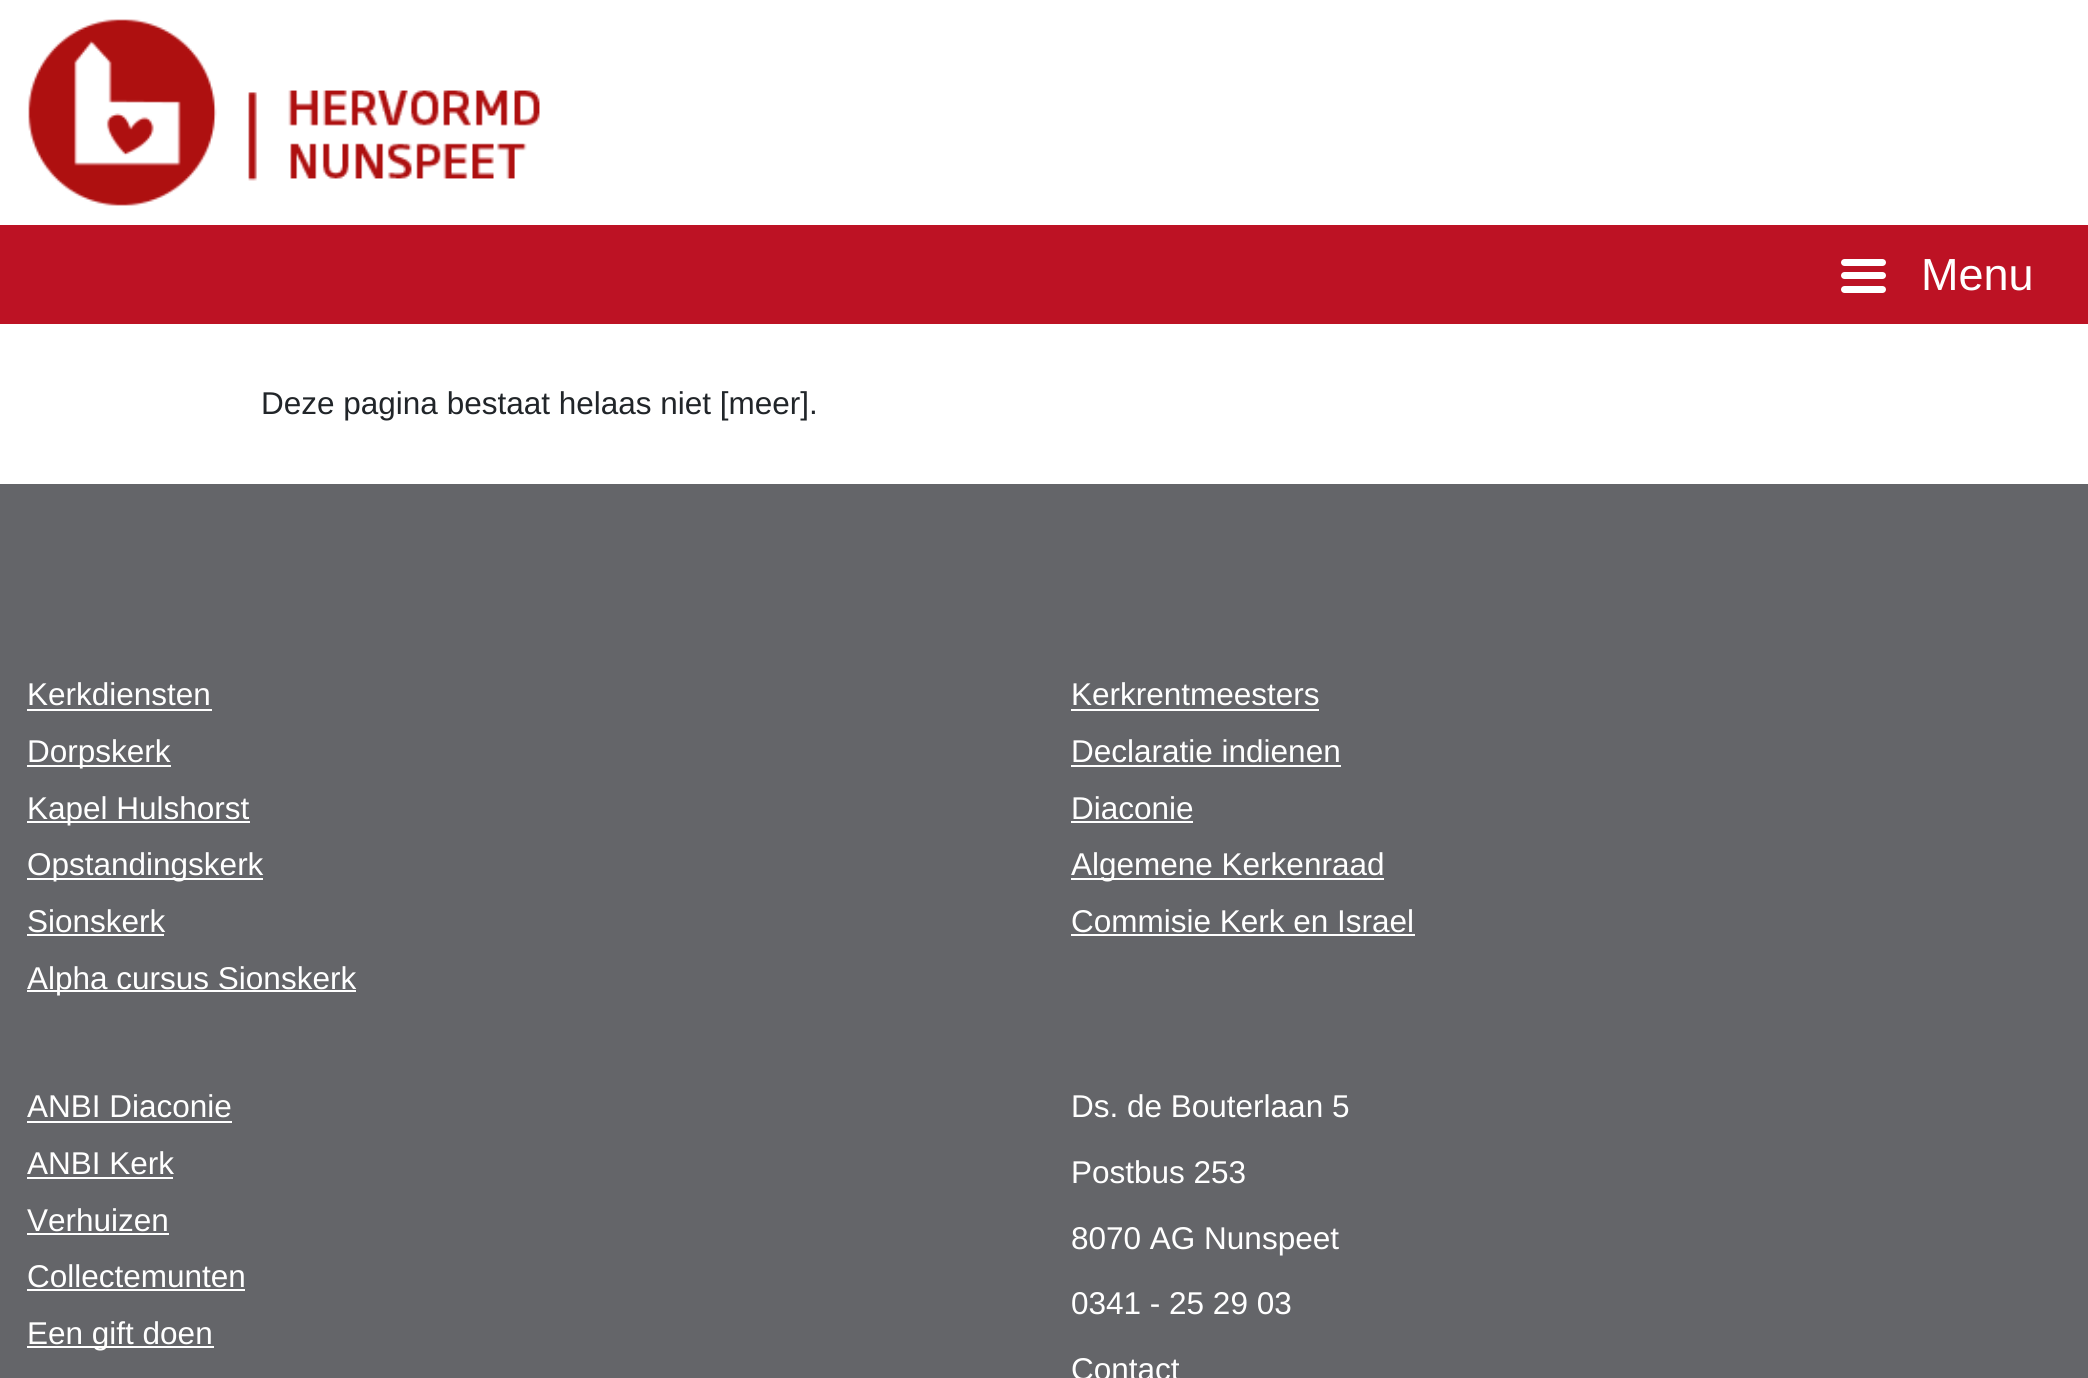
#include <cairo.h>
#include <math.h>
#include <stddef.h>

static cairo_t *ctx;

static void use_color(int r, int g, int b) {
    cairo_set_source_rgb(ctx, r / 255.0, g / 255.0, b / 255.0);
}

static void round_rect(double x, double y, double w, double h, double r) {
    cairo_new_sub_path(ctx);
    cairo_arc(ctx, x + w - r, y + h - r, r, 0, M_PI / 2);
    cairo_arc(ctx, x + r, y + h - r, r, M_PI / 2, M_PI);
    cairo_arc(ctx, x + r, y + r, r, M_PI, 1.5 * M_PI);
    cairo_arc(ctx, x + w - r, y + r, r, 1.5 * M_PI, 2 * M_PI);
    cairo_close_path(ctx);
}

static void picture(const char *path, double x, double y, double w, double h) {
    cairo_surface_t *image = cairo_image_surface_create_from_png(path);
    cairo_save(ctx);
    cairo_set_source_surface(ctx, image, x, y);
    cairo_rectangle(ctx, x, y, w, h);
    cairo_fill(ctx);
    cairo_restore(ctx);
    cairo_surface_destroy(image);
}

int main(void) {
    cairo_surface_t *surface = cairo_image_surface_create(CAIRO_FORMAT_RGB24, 2088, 1378);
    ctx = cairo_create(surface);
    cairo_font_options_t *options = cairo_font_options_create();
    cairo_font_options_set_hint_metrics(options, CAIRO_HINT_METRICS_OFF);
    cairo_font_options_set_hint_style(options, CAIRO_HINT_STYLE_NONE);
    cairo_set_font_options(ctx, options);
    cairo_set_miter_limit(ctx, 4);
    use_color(255, 255, 255);
    cairo_paint(ctx);
    picture("img1.png", 28, 19, 512, 187);
    use_color(189, 18, 36);
    cairo_rectangle(ctx, 0, 225, 2088, 99);
    cairo_fill(ctx);
    use_color(255, 255, 255);
    round_rect(1841, 286, 45, 7, 3.5);
    cairo_fill(ctx);
    round_rect(1841, 259, 45, 7, 3.5);
    cairo_fill(ctx);
    round_rect(1841, 272, 45, 7, 3.5);
    cairo_fill(ctx);
    cairo_select_font_face(ctx, "Liberation Sans", CAIRO_FONT_SLANT_NORMAL, CAIRO_FONT_WEIGHT_NORMAL);
    cairo_set_font_size(ctx, 45);
    cairo_move_to(ctx, 1921, 290);
    cairo_show_text(ctx, "Menu");
    cairo_set_font_size(ctx, 31.5);
    use_color(33, 37, 41);
    cairo_move_to(ctx, 261, 414);
    cairo_show_text(ctx, "Deze pagina bestaat helaas niet [meer].");
    use_color(100, 101, 105);
    cairo_rectangle(ctx, 0, 484, 2088, 894);
    cairo_fill(ctx);
    use_color(255, 255, 255);
    cairo_move_to(ctx, 27, 705);
    cairo_show_text(ctx, "Kerkdiensten");
    cairo_rectangle(ctx, 27, 709, 185, 2);
    cairo_fill(ctx);
    cairo_rectangle(ctx, 27, 765, 144, 2);
    cairo_fill(ctx);
    cairo_move_to(ctx, 27, 762);
    cairo_show_text(ctx, "Dorpskerk");
    cairo_rectangle(ctx, 27, 821, 223, 2);
    cairo_fill(ctx);
    cairo_move_to(ctx, 27, 819);
    cairo_show_text(ctx, "Kapel Hulshorst");
    cairo_rectangle(ctx, 27, 878, 236, 2);
    cairo_fill(ctx);
    cairo_move_to(ctx, 27, 875);
    cairo_show_text(ctx, "Opstandingskerk");
    cairo_move_to(ctx, 27, 932);
    cairo_show_text(ctx, "Sionskerk");
    cairo_rectangle(ctx, 27, 934, 137, 2);
    cairo_fill(ctx);
    cairo_rectangle(ctx, 27, 990, 329, 2);
    cairo_fill(ctx);
    cairo_move_to(ctx, 27, 989);
    cairo_show_text(ctx, "Alpha cursus Sionskerk");
    cairo_move_to(ctx, 1071, 705);
    cairo_show_text(ctx, "Kerkrentmeesters");
    cairo_rectangle(ctx, 1071, 709, 248, 2);
    cairo_fill(ctx);
    cairo_move_to(ctx, 1071, 762);
    cairo_show_text(ctx, "Declaratie indienen");
    cairo_rectangle(ctx, 1071, 765, 270, 2);
    cairo_fill(ctx);
    cairo_move_to(ctx, 1071, 819);
    cairo_show_text(ctx, "Diaconie");
    cairo_rectangle(ctx, 1071, 821, 122, 2);
    cairo_fill(ctx);
    cairo_rectangle(ctx, 1071, 878, 313, 2);
    cairo_fill(ctx);
    cairo_move_to(ctx, 1071, 875);
    cairo_show_text(ctx, "Algemene Kerkenraad");
    cairo_move_to(ctx, 1071, 932);
    cairo_show_text(ctx, "Commisie Kerk en Israel");
    cairo_rectangle(ctx, 1071, 934, 344, 2);
    cairo_fill(ctx);
    cairo_move_to(ctx, 27, 1117);
    cairo_show_text(ctx, "ANBI Diaconie");
    cairo_rectangle(ctx, 27, 1121, 205, 2);
    cairo_fill(ctx);
    cairo_move_to(ctx, 27, 1174);
    cairo_show_text(ctx, "ANBI Kerk");
    cairo_rectangle(ctx, 27, 1177, 146, 2);
    cairo_fill(ctx);
    cairo_move_to(ctx, 27, 1231);
    cairo_show_text(ctx, "Verhuizen");
    cairo_rectangle(ctx, 27, 1233, 142, 2);
    cairo_fill(ctx);
    cairo_move_to(ctx, 27, 1287);
    cairo_show_text(ctx, "Collectemunten");
    cairo_rectangle(ctx, 27, 1289, 218, 2);
    cairo_fill(ctx);
    cairo_rectangle(ctx, 27, 1346, 187, 2);
    cairo_fill(ctx);
    cairo_move_to(ctx, 27, 1344);
    cairo_show_text(ctx, "Een gift doen");
    cairo_move_to(ctx, 1071, 1117);
    cairo_show_text(ctx, "Ds. de Bouterlaan 5");
    cairo_move_to(ctx, 1071, 1183);
    cairo_show_text(ctx, "Postbus 253");
    cairo_move_to(ctx, 1071, 1249);
    cairo_show_text(ctx, "8070 AG Nunspeet");
    cairo_move_to(ctx, 1071, 1314);
    cairo_show_text(ctx, "0341 - 25 29 03");
    cairo_move_to(ctx, 1071, 1380);
    cairo_show_text(ctx, "Contact");
    cairo_surface_write_to_png(surface, "result.png");
    cairo_font_options_destroy(options);
    cairo_destroy(ctx);
    cairo_surface_destroy(surface);
    return 0;
}
